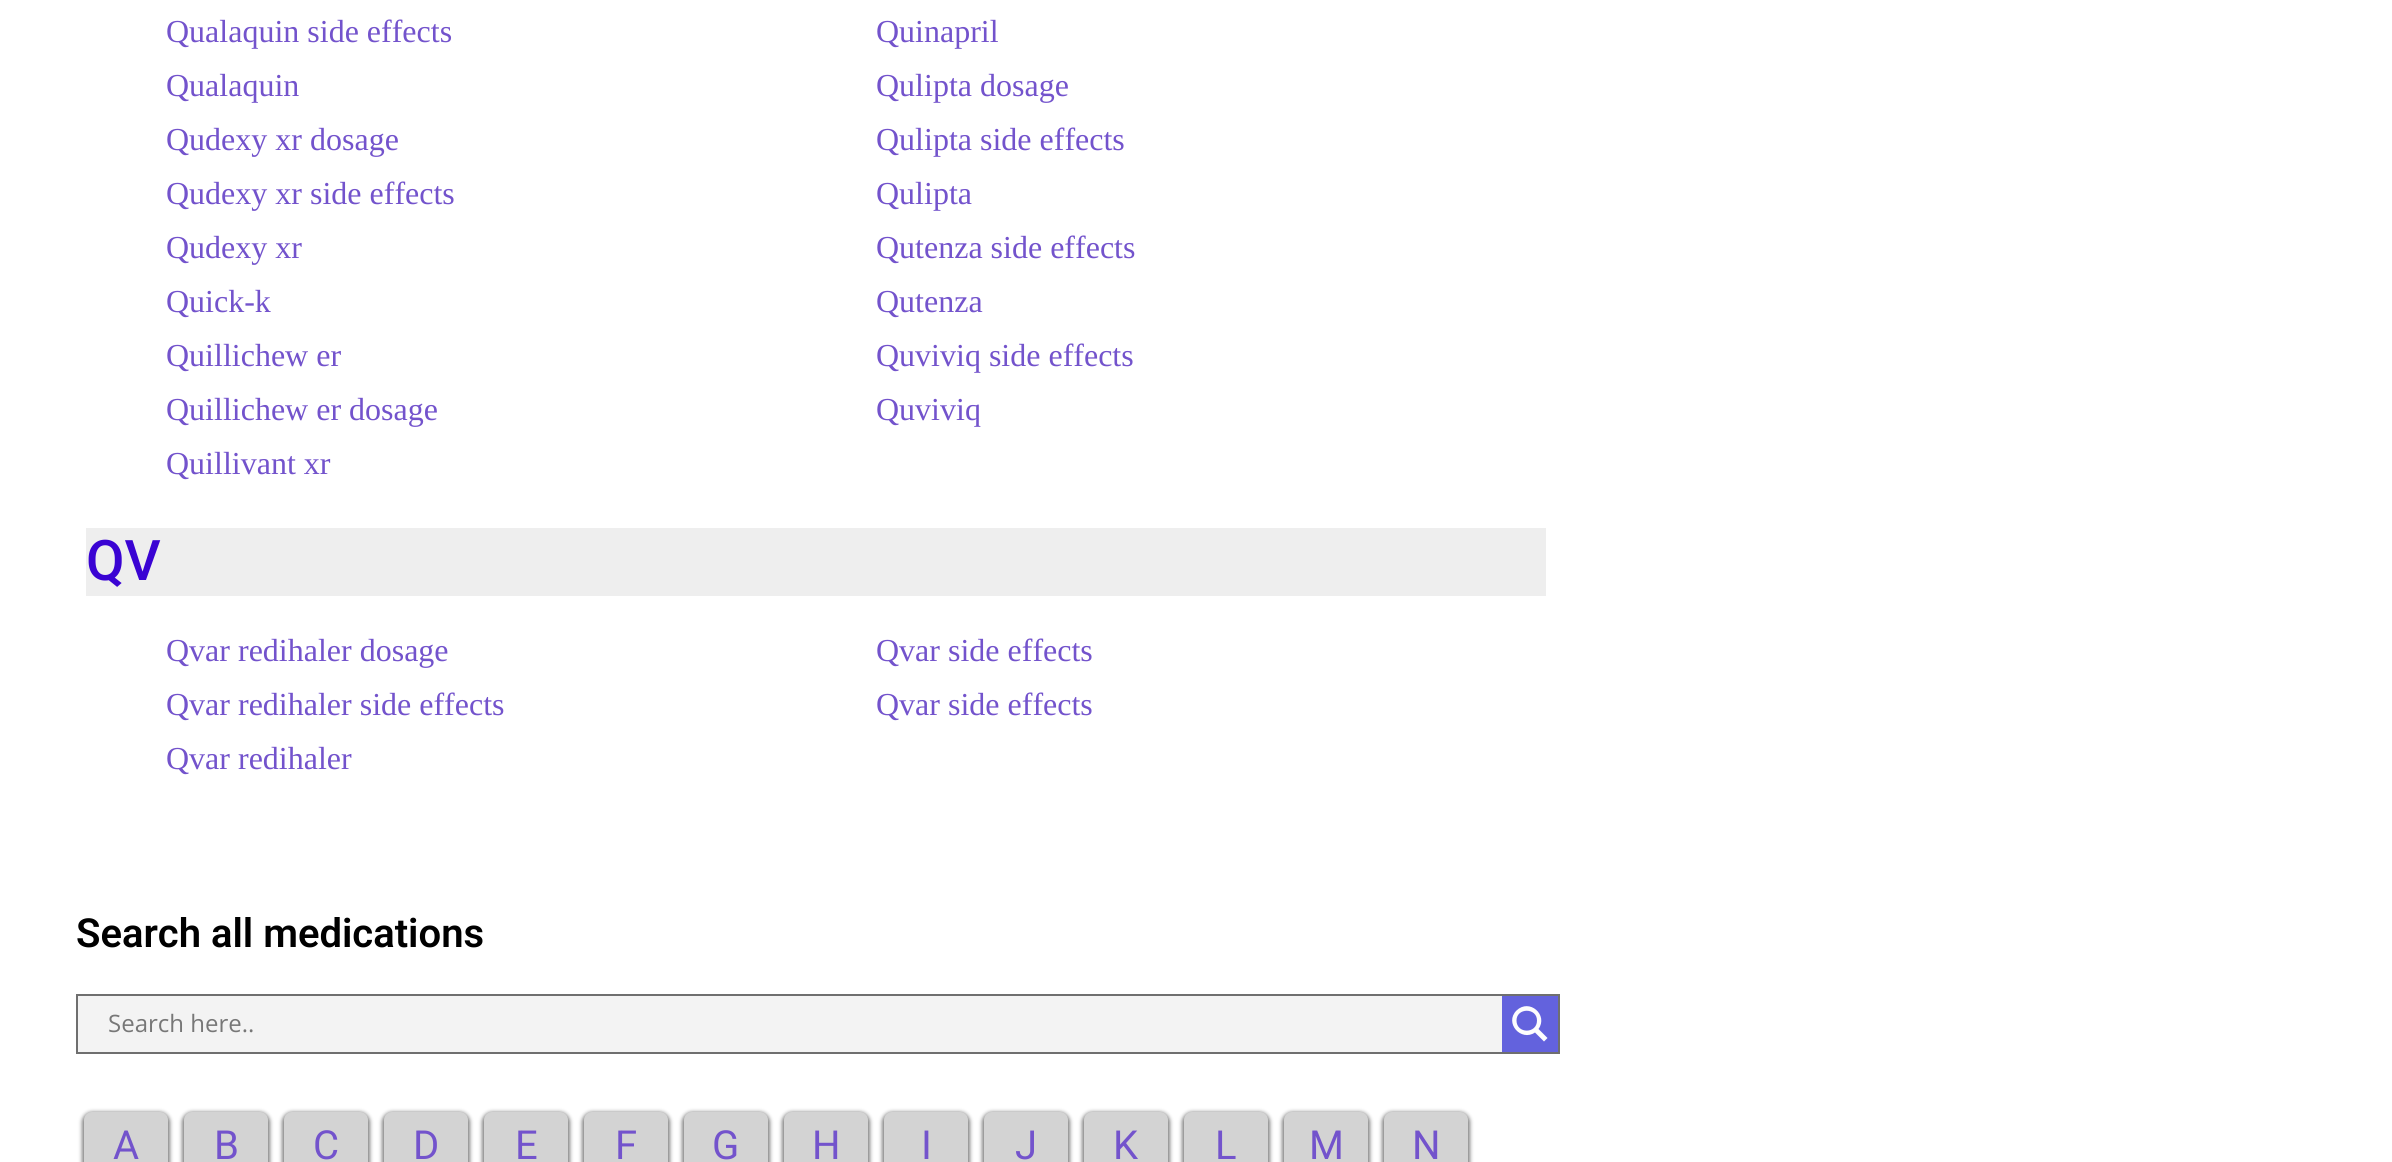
#include <cairo.h>
#include <math.h>
#include <stddef.h>

static cairo_t *ctx;

static void use_color(int r, int g, int b) {
    cairo_set_source_rgb(ctx, r / 255.0, g / 255.0, b / 255.0);
}

static void round_rect(double x, double y, double w, double h, double r) {
    cairo_new_sub_path(ctx);
    cairo_arc(ctx, x + w - r, y + h - r, r, 0, M_PI / 2);
    cairo_arc(ctx, x + r, y + h - r, r, M_PI / 2, M_PI);
    cairo_arc(ctx, x + r, y + r, r, M_PI, 1.5 * M_PI);
    cairo_arc(ctx, x + w - r, y + r, r, 1.5 * M_PI, 2 * M_PI);
    cairo_close_path(ctx);
}

static void shadow(double x, double y, double w, double h, double r, double blur, double alpha) {
    cairo_push_group_with_content(ctx, CAIRO_CONTENT_ALPHA);
    cairo_set_operator(ctx, CAIRO_OPERATOR_SOURCE);
    for (int i = 15; i >= -15 && fmin(w, h) + blur * i / 3 > 0; i -= 2) {
        double e = blur * i / 6;
        cairo_set_source_rgba(ctx, 0, 0, 0, alpha * erfc((i - 1) / 8.5) / 2);
        round_rect(x - e, y - e, w + 2 * e, h + 2 * e, fmax(0, fmin(r + e + blur * .6, fmin(w, h) / 2 + e)));
        cairo_fill(ctx);
    }
    cairo_pattern_t *soft = cairo_pop_group(ctx);
    cairo_mask(ctx, soft);
    cairo_pattern_destroy(soft);
}

int main(void) {
    cairo_surface_t *surface = cairo_image_surface_create(CAIRO_FORMAT_RGB24, 2392, 1162);
    ctx = cairo_create(surface);
    cairo_font_options_t *options = cairo_font_options_create();
    cairo_font_options_set_hint_metrics(options, CAIRO_HINT_METRICS_OFF);
    cairo_font_options_set_hint_style(options, CAIRO_HINT_STYLE_NONE);
    cairo_set_font_options(ctx, options);
    cairo_set_miter_limit(ctx, 4);
    use_color(255, 255, 255);
    cairo_paint(ctx);
    cairo_select_font_face(ctx, "Liberation Serif", CAIRO_FONT_SLANT_NORMAL, CAIRO_FONT_WEIGHT_NORMAL);
    cairo_set_font_size(ctx, 32);
    use_color(115, 83, 204);
    cairo_move_to(ctx, 166, 42);
    cairo_show_text(ctx, "Qualaquin side effects");
    cairo_move_to(ctx, 876, 42);
    cairo_show_text(ctx, "Quinapril");
    cairo_move_to(ctx, 166, 96);
    cairo_show_text(ctx, "Qualaquin");
    cairo_move_to(ctx, 876, 96);
    cairo_show_text(ctx, "Qulipta dosage");
    cairo_move_to(ctx, 166, 150);
    cairo_show_text(ctx, "Qudexy xr dosage");
    cairo_move_to(ctx, 876, 150);
    cairo_show_text(ctx, "Qulipta side effects");
    cairo_move_to(ctx, 166, 204);
    cairo_show_text(ctx, "Qudexy xr side effects");
    cairo_move_to(ctx, 876, 204);
    cairo_show_text(ctx, "Qulipta");
    cairo_move_to(ctx, 166, 258);
    cairo_show_text(ctx, "Qudexy xr");
    cairo_move_to(ctx, 876, 258);
    cairo_show_text(ctx, "Qutenza side effects");
    cairo_move_to(ctx, 166, 312);
    cairo_show_text(ctx, "Quick-k");
    cairo_move_to(ctx, 876, 312);
    cairo_show_text(ctx, "Qutenza");
    cairo_move_to(ctx, 166, 366);
    cairo_show_text(ctx, "Quillichew er");
    cairo_move_to(ctx, 876, 366);
    cairo_show_text(ctx, "Quviviq side effects");
    cairo_move_to(ctx, 166, 420);
    cairo_show_text(ctx, "Quillichew er dosage");
    cairo_move_to(ctx, 876, 420);
    cairo_show_text(ctx, "Quviviq");
    cairo_move_to(ctx, 166, 474);
    cairo_show_text(ctx, "Quillivant xr");
    use_color(238, 238, 238);
    cairo_rectangle(ctx, 86, 528, 1460, 68);
    cairo_fill(ctx);
    cairo_select_font_face(ctx, "Roboto Medium", CAIRO_FONT_SLANT_NORMAL, CAIRO_FONT_WEIGHT_NORMAL);
    cairo_set_font_size(ctx, 56);
    use_color(58, 3, 211);
    cairo_move_to(ctx, 86, 580);
    cairo_show_text(ctx, "QV");
    cairo_select_font_face(ctx, "Liberation Serif", CAIRO_FONT_SLANT_NORMAL, CAIRO_FONT_WEIGHT_NORMAL);
    cairo_set_font_size(ctx, 32);
    use_color(115, 83, 204);
    cairo_move_to(ctx, 166, 661);
    cairo_show_text(ctx, "Qvar redihaler dosage");
    cairo_move_to(ctx, 876, 661);
    cairo_show_text(ctx, "Qvar side effects");
    cairo_move_to(ctx, 166, 715);
    cairo_show_text(ctx, "Qvar redihaler side effects");
    cairo_move_to(ctx, 876, 715);
    cairo_show_text(ctx, "Qvar side effects");
    cairo_move_to(ctx, 166, 769);
    cairo_show_text(ctx, "Qvar redihaler");
    cairo_select_font_face(ctx, "Roboto SemiBold", CAIRO_FONT_SLANT_NORMAL, CAIRO_FONT_WEIGHT_NORMAL);
    cairo_set_font_size(ctx, 40);
    use_color(0, 0, 0);
    cairo_move_to(ctx, 76, 947);
    cairo_show_text(ctx, "Search all medications");
    use_color(243, 243, 243);
    cairo_rectangle(ctx, 78, 996, 1424, 56);
    cairo_fill(ctx);
    cairo_rectangle(ctx, 77, 995, 1482, 58);
    use_color(111, 111, 111);
    cairo_stroke(ctx);
    cairo_select_font_face(ctx, "Open Sans", CAIRO_FONT_SLANT_NORMAL, CAIRO_FONT_WEIGHT_NORMAL);
    cairo_set_font_size(ctx, 24);
    use_color(119, 119, 119);
    cairo_move_to(ctx, 108, 1032);
    cairo_show_text(ctx, "Search here..");
    use_color(99, 98, 221);
    cairo_rectangle(ctx, 1502, 996, 56, 56);
    cairo_fill(ctx);
    use_color(253, 253, 253);
    cairo_new_path(ctx);
    cairo_move_to(ctx, 1547.5, 1038);
    cairo_line_to(ctx, 1538.5, 1029);
    cairo_curve_to(ctx, 1548.5, 1015, 1529.5, 998, 1516.5, 1010.5);
    cairo_curve_to(ctx, 1504, 1023, 1521, 1042, 1535, 1032.5);
    cairo_line_to(ctx, 1544, 1041.5);
    cairo_close_path(ctx);
    cairo_move_to(ctx, 1516.5, 1020.5);
    cairo_curve_to(ctx, 1516.5, 1007.5, 1537, 1007.5, 1537, 1020.5);
    cairo_curve_to(ctx, 1537, 1034, 1516.5, 1034, 1516.5, 1020.5);
    cairo_close_path(ctx);
    cairo_fill(ctx);
    use_color(128, 128, 128);
    shadow(82, 1112, 88, 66, 10, 2, 1);
    use_color(211, 211, 211);
    round_rect(84, 1112, 84, 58, 8);
    cairo_fill(ctx);
    cairo_select_font_face(ctx, "Roboto", CAIRO_FONT_SLANT_NORMAL, CAIRO_FONT_WEIGHT_NORMAL);
    cairo_set_font_size(ctx, 40);
    use_color(115, 83, 204);
    cairo_move_to(ctx, 113, 1159);
    cairo_show_text(ctx, "A");
    use_color(128, 128, 128);
    shadow(182, 1112, 88, 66, 10, 2, 1);
    use_color(211, 211, 211);
    round_rect(184, 1112, 84, 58, 8);
    cairo_fill(ctx);
    use_color(115, 83, 204);
    cairo_move_to(ctx, 214, 1159);
    cairo_show_text(ctx, "B");
    use_color(128, 128, 128);
    shadow(282, 1112, 88, 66, 10, 2, 1);
    use_color(211, 211, 211);
    round_rect(284, 1112, 84, 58, 8);
    cairo_fill(ctx);
    use_color(115, 83, 204);
    cairo_move_to(ctx, 313, 1159);
    cairo_show_text(ctx, "C");
    use_color(128, 128, 128);
    shadow(382, 1112, 88, 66, 10, 2, 1);
    use_color(211, 211, 211);
    round_rect(384, 1112, 84, 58, 8);
    cairo_fill(ctx);
    use_color(115, 83, 204);
    cairo_move_to(ctx, 413, 1159);
    cairo_show_text(ctx, "D");
    use_color(128, 128, 128);
    shadow(482, 1112, 88, 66, 10, 2, 1);
    use_color(211, 211, 211);
    round_rect(484, 1112, 84, 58, 8);
    cairo_fill(ctx);
    use_color(115, 83, 204);
    cairo_move_to(ctx, 515, 1159);
    cairo_show_text(ctx, "E");
    use_color(128, 128, 128);
    shadow(582, 1112, 88, 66, 10, 2, 1);
    use_color(211, 211, 211);
    round_rect(584, 1112, 84, 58, 8);
    cairo_fill(ctx);
    use_color(115, 83, 204);
    cairo_move_to(ctx, 615, 1159);
    cairo_show_text(ctx, "F");
    use_color(128, 128, 128);
    shadow(682, 1112, 88, 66, 10, 2, 1);
    use_color(211, 211, 211);
    round_rect(684, 1112, 84, 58, 8);
    cairo_fill(ctx);
    use_color(115, 83, 204);
    cairo_move_to(ctx, 712, 1159);
    cairo_show_text(ctx, "G");
    use_color(128, 128, 128);
    shadow(782, 1112, 88, 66, 10, 2, 1);
    use_color(211, 211, 211);
    round_rect(784, 1112, 84, 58, 8);
    cairo_fill(ctx);
    use_color(115, 83, 204);
    cairo_move_to(ctx, 812, 1159);
    cairo_show_text(ctx, "H");
    use_color(128, 128, 128);
    shadow(882, 1112, 88, 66, 10, 2, 1);
    use_color(211, 211, 211);
    round_rect(884, 1112, 84, 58, 8);
    cairo_fill(ctx);
    use_color(115, 83, 204);
    cairo_move_to(ctx, 921, 1159);
    cairo_show_text(ctx, "I");
    use_color(128, 128, 128);
    shadow(982, 1112, 88, 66, 10, 2, 1);
    use_color(211, 211, 211);
    round_rect(984, 1112, 84, 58, 8);
    cairo_fill(ctx);
    use_color(115, 83, 204);
    cairo_move_to(ctx, 1015, 1159);
    cairo_show_text(ctx, "J");
    use_color(128, 128, 128);
    shadow(1082, 1112, 88, 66, 10, 2, 1);
    use_color(211, 211, 211);
    round_rect(1084, 1112, 84, 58, 8);
    cairo_fill(ctx);
    use_color(115, 83, 204);
    cairo_move_to(ctx, 1113, 1159);
    cairo_show_text(ctx, "K");
    use_color(128, 128, 128);
    shadow(1182, 1112, 88, 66, 10, 2, 1);
    use_color(211, 211, 211);
    round_rect(1184, 1112, 84, 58, 8);
    cairo_fill(ctx);
    use_color(115, 83, 204);
    cairo_move_to(ctx, 1215, 1159);
    cairo_show_text(ctx, "L");
    use_color(128, 128, 128);
    shadow(1282, 1112, 88, 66, 10, 2, 1);
    use_color(211, 211, 211);
    round_rect(1284, 1112, 84, 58, 8);
    cairo_fill(ctx);
    use_color(115, 83, 204);
    cairo_move_to(ctx, 1309, 1159);
    cairo_show_text(ctx, "M");
    use_color(128, 128, 128);
    shadow(1382, 1112, 88, 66, 10, 2, 1);
    use_color(211, 211, 211);
    round_rect(1384, 1112, 84, 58, 8);
    cairo_fill(ctx);
    use_color(115, 83, 204);
    cairo_move_to(ctx, 1412, 1159);
    cairo_show_text(ctx, "N");
    cairo_surface_write_to_png(surface, "result.png");
    cairo_font_options_destroy(options);
    cairo_destroy(ctx);
    cairo_surface_destroy(surface);
    return 0;
}
